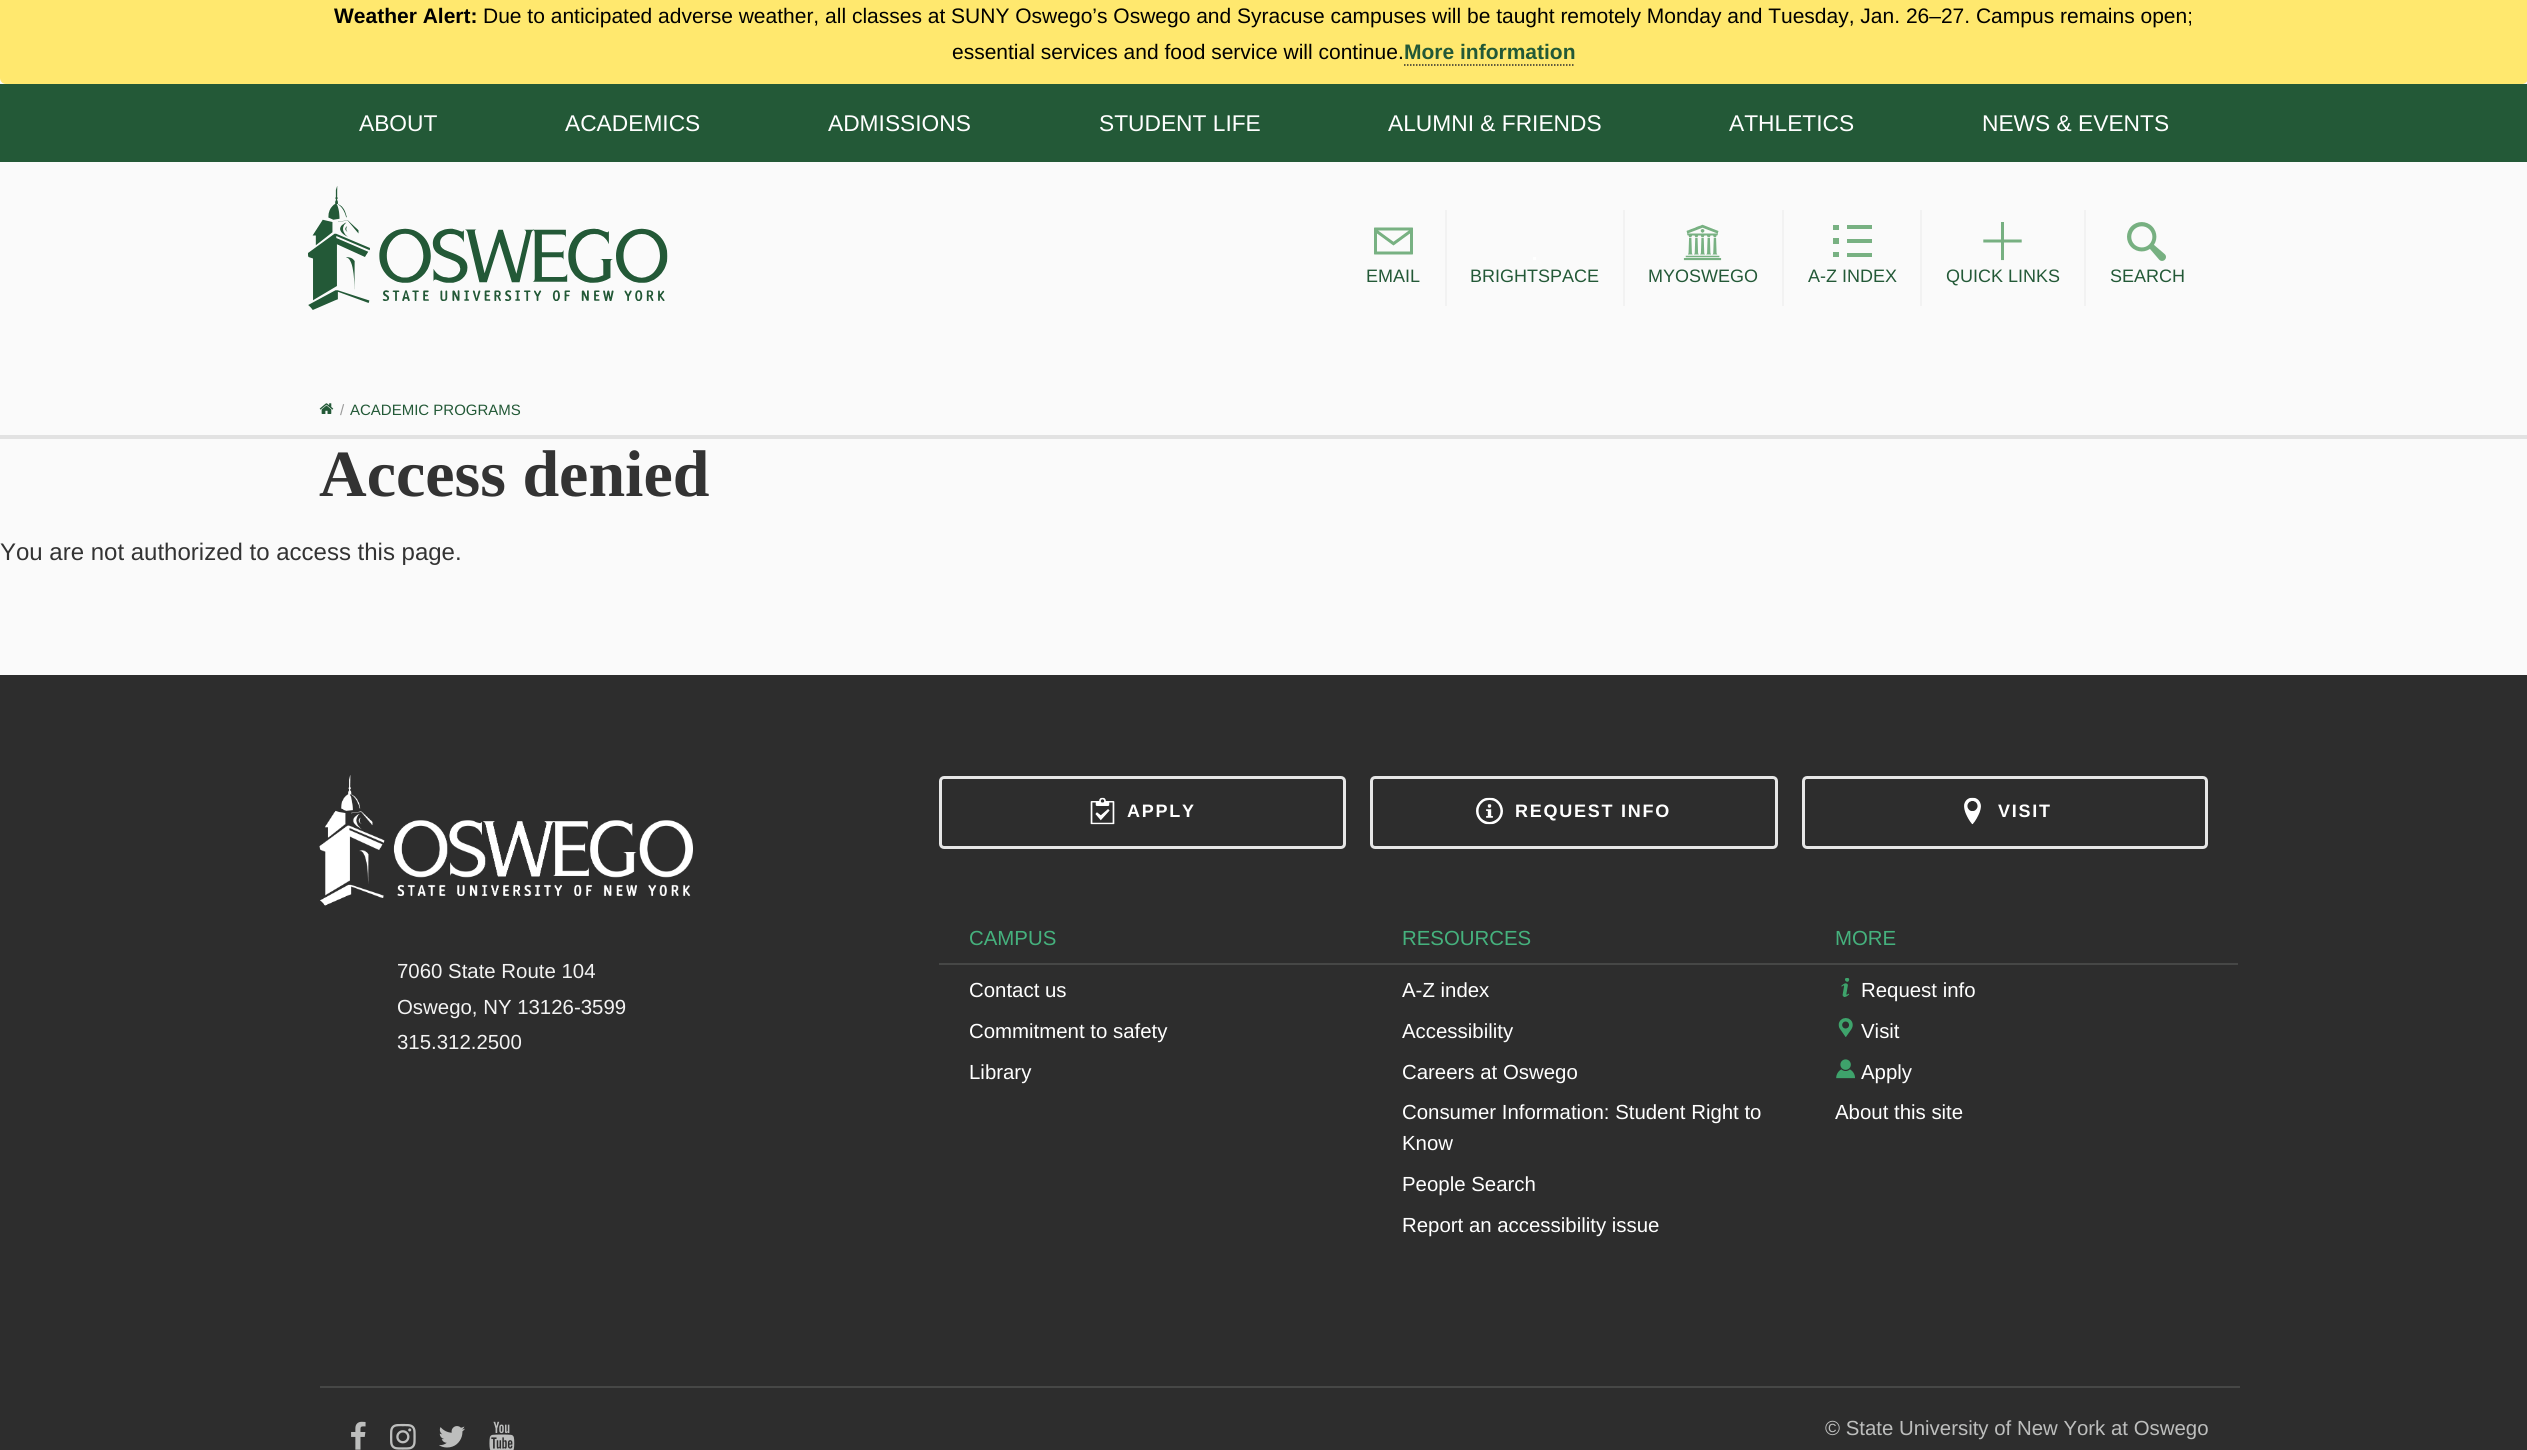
#include <cairo.h>
#include <math.h>
#include <stddef.h>

static cairo_t *ctx;

static void use_color(int r, int g, int b) {
    cairo_set_source_rgb(ctx, r / 255.0, g / 255.0, b / 255.0);
}

static void spaced_text(double x, double y, const char *s, double letter, double word) {
    cairo_move_to(ctx, x, y);
    while (*s) {
        char ch[5] = {0};
        int n = 0;
        do ch[n++] = *s++; while ((*s & 0xC0) == 0x80);
        cairo_show_text(ctx, ch);
        cairo_rel_move_to(ctx, letter + word * (*ch == ' '), 0);
    }
}

static void round_rect(double x, double y, double w, double h, double r) {
    cairo_new_sub_path(ctx);
    cairo_arc(ctx, x + w - r, y + h - r, r, 0, M_PI / 2);
    cairo_arc(ctx, x + r, y + h - r, r, M_PI / 2, M_PI);
    cairo_arc(ctx, x + r, y + r, r, M_PI, 1.5 * M_PI);
    cairo_arc(ctx, x + w - r, y + r, r, 1.5 * M_PI, 2 * M_PI);
    cairo_close_path(ctx);
}

static void picture(const char *path, double x, double y, double w, double h) {
    cairo_surface_t *image = cairo_image_surface_create_from_png(path);
    cairo_save(ctx);
    cairo_set_source_surface(ctx, image, x, y);
    cairo_rectangle(ctx, x, y, w, h);
    cairo_fill(ctx);
    cairo_restore(ctx);
    cairo_surface_destroy(image);
}

int main(void) {
    cairo_surface_t *surface = cairo_image_surface_create(CAIRO_FORMAT_RGB24, 2527, 1450);
    ctx = cairo_create(surface);
    cairo_font_options_t *options = cairo_font_options_create();
    cairo_font_options_set_hint_metrics(options, CAIRO_HINT_METRICS_OFF);
    cairo_font_options_set_hint_style(options, CAIRO_HINT_STYLE_NONE);
    cairo_set_font_options(ctx, options);
    cairo_set_miter_limit(ctx, 4);
    use_color(250, 250, 250);
    cairo_paint(ctx);
    use_color(255, 232, 110);
    round_rect(0, -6, 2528, 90, 6);
    cairo_fill(ctx);
    cairo_select_font_face(ctx, "Liberation Sans", CAIRO_FONT_SLANT_NORMAL, CAIRO_FONT_WEIGHT_BOLD);
    cairo_set_font_size(ctx, 21);
    use_color(0, 0, 0);
    cairo_move_to(ctx, 334, 23);
    cairo_show_text(ctx, "Weather Alert:");
    cairo_select_font_face(ctx, "Liberation Sans", CAIRO_FONT_SLANT_NORMAL, CAIRO_FONT_WEIGHT_NORMAL);
    cairo_move_to(ctx, 483, 23);
    cairo_show_text(ctx, "Due to anticipated adverse weather, all classes at SUNY Oswego’s Oswego and Syracuse campuses will be taught remotely Monday and Tuesday, Jan. 26–27. Campus remains open;");
    cairo_move_to(ctx, 952, 59);
    cairo_show_text(ctx, "essential services and food service will continue.");
    cairo_select_font_face(ctx, "Liberation Sans", CAIRO_FONT_SLANT_NORMAL, CAIRO_FONT_WEIGHT_BOLD);
    use_color(35, 89, 55);
    cairo_move_to(ctx, 1404, 59);
    cairo_show_text(ctx, "More information");
    cairo_new_path(ctx);
    cairo_move_to(ctx, 1404, 65);
    cairo_line_to(ctx, 1575, 65);
    use_color(45, 45, 45);
    cairo_set_line_width(ctx, 1.5);
    cairo_set_dash(ctx, (double[]){1.5, 1.5}, 2, 0);
    cairo_stroke(ctx);
    use_color(35, 89, 55);
    cairo_rectangle(ctx, 0, 84, 2527, 78);
    cairo_fill(ctx);
    cairo_select_font_face(ctx, "Liberation Sans", CAIRO_FONT_SLANT_NORMAL, CAIRO_FONT_WEIGHT_NORMAL);
    cairo_set_font_size(ctx, 22.75);
    use_color(255, 255, 255);
    cairo_move_to(ctx, 359, 131);
    cairo_show_text(ctx, "ABOUT");
    cairo_move_to(ctx, 565, 131);
    cairo_show_text(ctx, "ACADEMICS");
    cairo_move_to(ctx, 828, 131);
    cairo_show_text(ctx, "ADMISSIONS");
    cairo_move_to(ctx, 1099, 131);
    cairo_show_text(ctx, "STUDENT LIFE");
    cairo_move_to(ctx, 1388, 131);
    cairo_show_text(ctx, "ALUMNI & FRIENDS");
    cairo_move_to(ctx, 1729, 131);
    cairo_show_text(ctx, "ATHLETICS");
    cairo_move_to(ctx, 1982, 131);
    cairo_show_text(ctx, "NEWS & EVENTS");
    picture("img1.png", 308, 186, 360, 124);
    picture("img2.png", 1374, 227, 39, 28);
    cairo_set_font_size(ctx, 18);
    use_color(35, 89, 55);
    cairo_move_to(ctx, 1366, 282);
    cairo_show_text(ctx, "EMAIL");
    use_color(242, 242, 242);
    cairo_rectangle(ctx, 1445, 210, 2, 96);
    cairo_fill(ctx);
    use_color(255, 255, 255);
    cairo_rectangle(ctx, 1533, 257, 3, 3);
    cairo_fill(ctx);
    use_color(35, 89, 55);
    cairo_move_to(ctx, 1470, 282);
    cairo_show_text(ctx, "BRIGHTSPACE");
    use_color(242, 242, 242);
    cairo_rectangle(ctx, 1623, 210, 2, 96);
    cairo_fill(ctx);
    picture("img3.png", 1683, 224, 39, 37);
    use_color(35, 89, 55);
    cairo_move_to(ctx, 1648, 282);
    cairo_show_text(ctx, "MYOSWEGO");
    use_color(242, 242, 242);
    cairo_rectangle(ctx, 1782, 210, 2, 96);
    cairo_fill(ctx);
    picture("img4.png", 1833, 225, 39, 32);
    use_color(35, 89, 55);
    cairo_move_to(ctx, 1808, 282);
    cairo_show_text(ctx, "A-Z INDEX");
    use_color(242, 242, 242);
    cairo_rectangle(ctx, 1920, 210, 2, 96);
    cairo_fill(ctx);
    picture("img5.png", 1983, 222, 39, 39);
    use_color(35, 89, 55);
    cairo_move_to(ctx, 1946, 282);
    cairo_show_text(ctx, "QUICK LINKS");
    use_color(242, 242, 242);
    cairo_rectangle(ctx, 2084, 210, 2, 96);
    cairo_fill(ctx);
    picture("img6.png", 2127, 222, 39, 39);
    use_color(35, 89, 55);
    cairo_move_to(ctx, 2110, 282);
    cairo_show_text(ctx, "SEARCH");
    picture("img7.png", 319, 403, 15, 11);
    cairo_set_font_size(ctx, 15);
    use_color(153, 153, 153);
    cairo_move_to(ctx, 340, 415);
    cairo_show_text(ctx, "/");
    use_color(35, 89, 55);
    cairo_move_to(ctx, 350, 415);
    cairo_show_text(ctx, "ACADEMIC PROGRAMS");
    use_color(226, 226, 226);
    cairo_rectangle(ctx, 0, 435, 2527, 4);
    cairo_fill(ctx);
    cairo_select_font_face(ctx, "Liberation Serif", CAIRO_FONT_SLANT_NORMAL, CAIRO_FONT_WEIGHT_BOLD);
    cairo_set_font_size(ctx, 66);
    use_color(51, 51, 51);
    cairo_move_to(ctx, 319, 496);
    cairo_show_text(ctx, "Access denied");
    cairo_select_font_face(ctx, "Liberation Sans", CAIRO_FONT_SLANT_NORMAL, CAIRO_FONT_WEIGHT_NORMAL);
    cairo_set_font_size(ctx, 24);
    cairo_move_to(ctx, 0, 560);
    cairo_show_text(ctx, "You are not authorized to access this page.");
    use_color(45, 45, 45);
    cairo_rectangle(ctx, 0, 675, 2527, 775);
    cairo_fill(ctx);
    picture("img8.png", 319, 775, 374, 131);
    cairo_set_font_size(ctx, 20.4);
    use_color(243, 243, 243);
    cairo_move_to(ctx, 397, 978);
    cairo_show_text(ctx, "7060 State Route 104");
    cairo_move_to(ctx, 397, 1014);
    cairo_show_text(ctx, "Oswego, NY 13126-3599");
    cairo_move_to(ctx, 397, 1049);
    cairo_show_text(ctx, "315.312.2500");
    round_rect(940.5, 777.5, 404, 70, 3.5);
    use_color(230, 230, 230);
    cairo_set_line_width(ctx, 3);
    cairo_set_dash(ctx, NULL, 0, 0);
    cairo_stroke(ctx);
    picture("img9.png", 1090, 797, 25, 28);
    cairo_select_font_face(ctx, "Liberation Sans", CAIRO_FONT_SLANT_NORMAL, CAIRO_FONT_WEIGHT_BOLD);
    cairo_set_font_size(ctx, 18);
    use_color(255, 255, 255);
    spaced_text(1127, 817, "APPLY", 1.75, 0);
    round_rect(1371.5, 777.5, 405, 70, 3.5);
    use_color(230, 230, 230);
    cairo_stroke(ctx);
    picture("img10.png", 1476, 797, 27, 28);
    use_color(255, 255, 255);
    spaced_text(1515, 817, "REQUEST INFO", 1.75, 0);
    round_rect(1803.5, 777.5, 403, 70, 3.5);
    use_color(230, 230, 230);
    cairo_stroke(ctx);
    picture("img11.png", 1964, 797, 17, 28);
    use_color(255, 255, 255);
    spaced_text(1998, 817, "VISIT", 1.75, 0);
    use_color(70, 71, 70);
    cairo_rectangle(ctx, 939, 963, 1299, 2);
    cairo_fill(ctx);
    cairo_select_font_face(ctx, "Liberation Sans", CAIRO_FONT_SLANT_NORMAL, CAIRO_FONT_WEIGHT_NORMAL);
    cairo_set_font_size(ctx, 20.4);
    use_color(69, 177, 125);
    cairo_move_to(ctx, 969, 945);
    cairo_show_text(ctx, "CAMPUS");
    cairo_move_to(ctx, 1402, 945);
    cairo_show_text(ctx, "RESOURCES");
    cairo_move_to(ctx, 1835, 945);
    cairo_show_text(ctx, "MORE");
    use_color(255, 255, 255);
    cairo_move_to(ctx, 969, 997);
    cairo_show_text(ctx, "Contact us");
    cairo_move_to(ctx, 969, 1038);
    cairo_show_text(ctx, "Commitment to safety");
    cairo_move_to(ctx, 969, 1079);
    cairo_show_text(ctx, "Library");
    cairo_move_to(ctx, 1402, 997);
    cairo_show_text(ctx, "A-Z index");
    cairo_move_to(ctx, 1402, 1038);
    cairo_show_text(ctx, "Accessibility");
    cairo_move_to(ctx, 1402, 1079);
    cairo_show_text(ctx, "Careers at Oswego");
    cairo_move_to(ctx, 1402, 1119);
    cairo_show_text(ctx, "Consumer Information: Student Right to");
    cairo_move_to(ctx, 1402, 1150);
    cairo_show_text(ctx, "Know");
    cairo_move_to(ctx, 1402, 1191);
    cairo_show_text(ctx, "People Search");
    cairo_move_to(ctx, 1402, 1232);
    cairo_show_text(ctx, "Report an accessibility issue");
    picture("img12.png", 1841, 978, 9, 19);
    cairo_move_to(ctx, 1861, 997);
    cairo_show_text(ctx, "Request info");
    picture("img13.png", 1838, 1018, 15, 19);
    cairo_move_to(ctx, 1861, 1038);
    cairo_show_text(ctx, "Visit");
    picture("img14.png", 1836, 1059, 19, 20);
    cairo_move_to(ctx, 1861, 1079);
    cairo_show_text(ctx, "Apply");
    cairo_move_to(ctx, 1835, 1119);
    cairo_show_text(ctx, "About this site");
    use_color(70, 71, 70);
    cairo_rectangle(ctx, 320, 1386, 1920, 2);
    cairo_fill(ctx);
    picture("img15.png", 351, 1421, 15, 29);
    picture("img16.png", 390, 1423, 26, 27);
    picture("img17.png", 439, 1426, 26, 22);
    picture("img18.png", 489, 1421, 26, 29);
    use_color(189, 190, 189);
    cairo_move_to(ctx, 1825, 1435);
    cairo_show_text(ctx, "© State University of New York at Oswego");
    cairo_surface_write_to_png(surface, "result.png");
    cairo_font_options_destroy(options);
    cairo_destroy(ctx);
    cairo_surface_destroy(surface);
    return 0;
}
